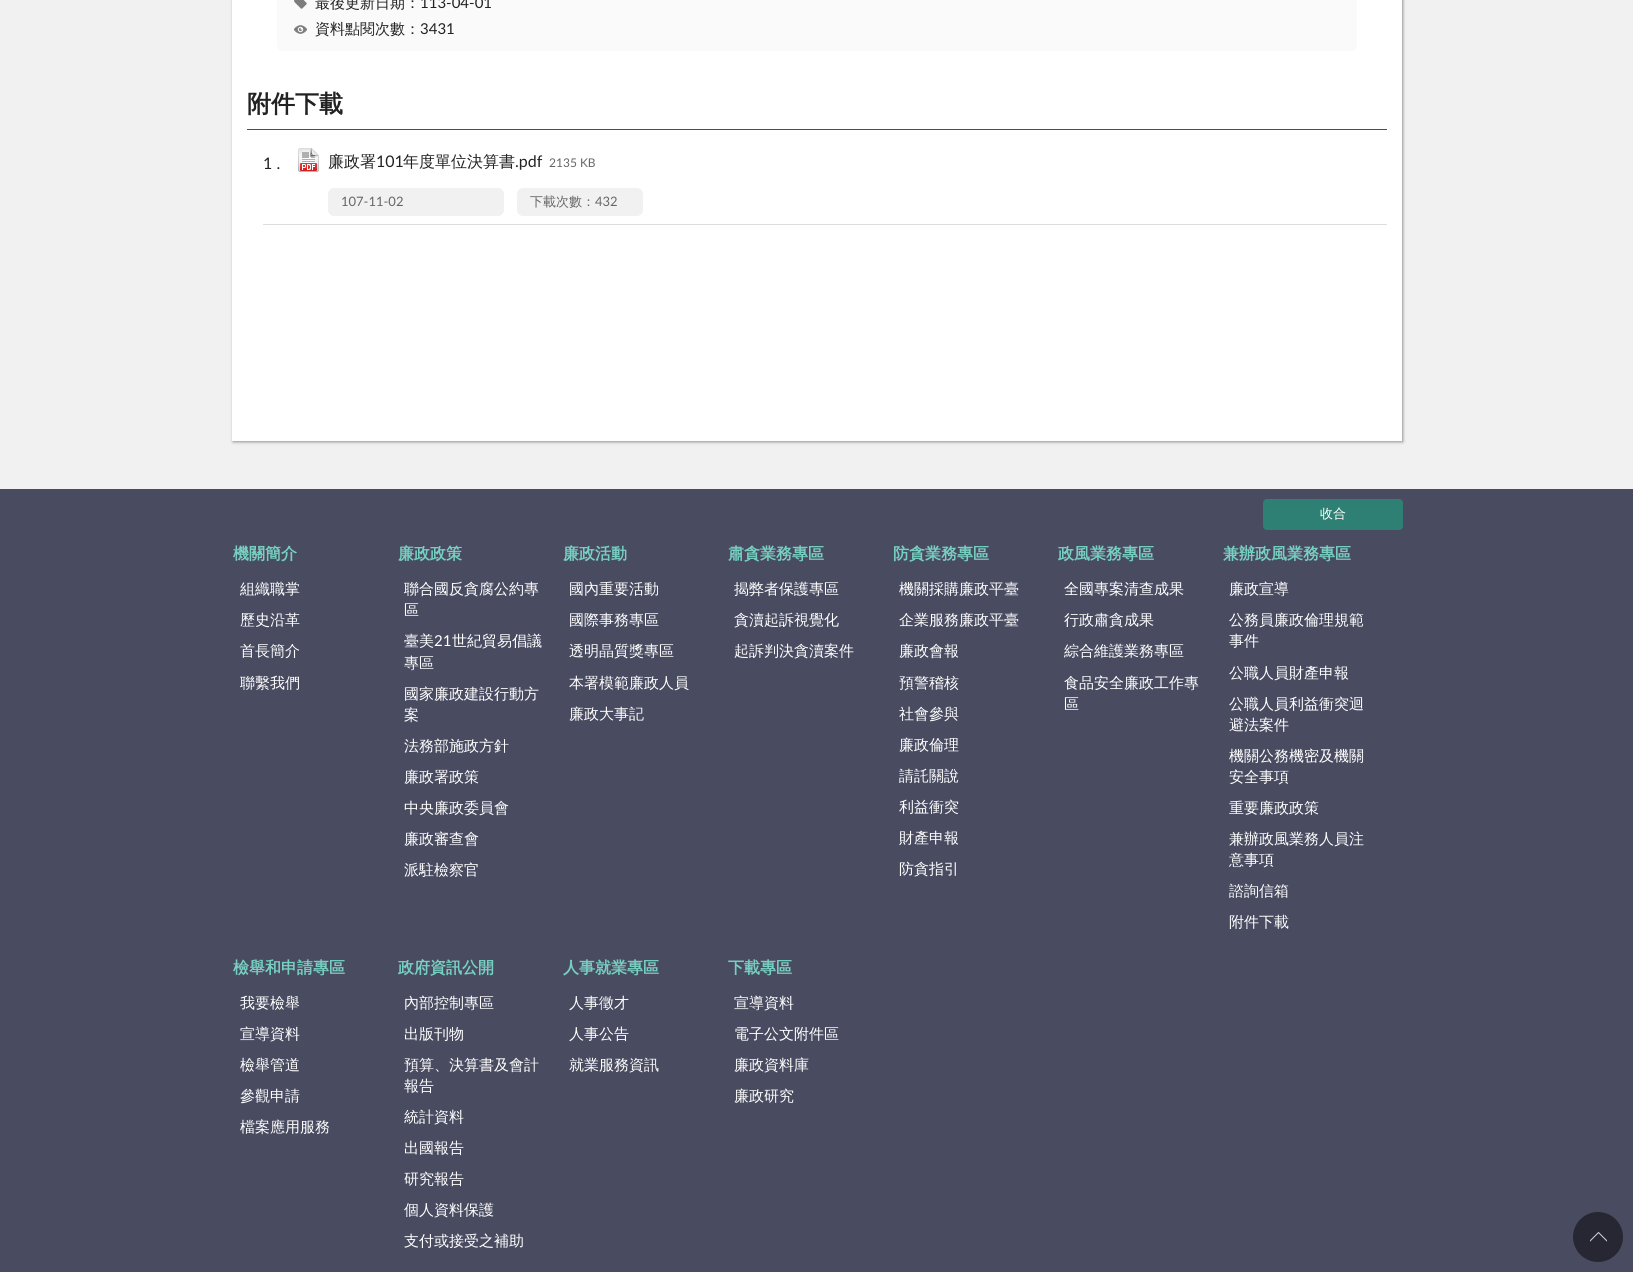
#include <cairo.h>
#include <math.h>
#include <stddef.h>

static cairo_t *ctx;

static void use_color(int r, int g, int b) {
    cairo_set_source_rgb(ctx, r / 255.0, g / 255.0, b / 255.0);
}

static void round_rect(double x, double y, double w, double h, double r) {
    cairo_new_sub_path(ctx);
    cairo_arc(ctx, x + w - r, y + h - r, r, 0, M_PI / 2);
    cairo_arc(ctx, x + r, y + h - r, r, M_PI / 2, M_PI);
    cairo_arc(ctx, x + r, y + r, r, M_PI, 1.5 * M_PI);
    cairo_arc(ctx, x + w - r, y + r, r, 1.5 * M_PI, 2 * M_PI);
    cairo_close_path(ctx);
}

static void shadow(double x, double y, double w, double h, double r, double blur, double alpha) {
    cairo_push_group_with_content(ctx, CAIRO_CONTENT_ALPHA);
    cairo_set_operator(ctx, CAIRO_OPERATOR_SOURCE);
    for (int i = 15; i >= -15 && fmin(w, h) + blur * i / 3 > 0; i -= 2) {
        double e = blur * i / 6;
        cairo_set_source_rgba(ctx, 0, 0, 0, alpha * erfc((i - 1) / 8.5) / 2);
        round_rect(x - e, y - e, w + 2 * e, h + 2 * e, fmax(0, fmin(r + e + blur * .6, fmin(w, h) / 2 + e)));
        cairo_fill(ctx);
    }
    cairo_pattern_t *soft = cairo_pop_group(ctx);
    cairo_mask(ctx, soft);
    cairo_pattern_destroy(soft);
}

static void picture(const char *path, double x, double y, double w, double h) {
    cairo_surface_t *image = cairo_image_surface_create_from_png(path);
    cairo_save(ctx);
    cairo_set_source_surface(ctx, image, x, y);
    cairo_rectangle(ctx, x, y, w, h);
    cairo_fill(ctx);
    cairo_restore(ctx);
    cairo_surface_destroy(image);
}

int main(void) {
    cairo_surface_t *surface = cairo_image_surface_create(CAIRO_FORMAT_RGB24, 1633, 1272);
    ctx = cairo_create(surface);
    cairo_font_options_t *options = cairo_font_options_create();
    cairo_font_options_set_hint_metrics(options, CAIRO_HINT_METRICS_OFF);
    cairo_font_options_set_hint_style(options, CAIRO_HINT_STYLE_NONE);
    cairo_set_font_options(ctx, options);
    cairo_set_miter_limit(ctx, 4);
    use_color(241, 241, 241);
    cairo_paint(ctx);
    use_color(0, 0, 0);
    shadow(233, -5, 1170, 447, 0, 1.5, 0.4);
    use_color(255, 255, 255);
    cairo_rectangle(ctx, 232, 0, 1170, 441);
    cairo_fill(ctx);
    use_color(250, 250, 250);
    round_rect(277, -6, 1080, 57, 6);
    cairo_fill(ctx);
    picture("img1.png", 294, 0, 13, 9);
    cairo_select_font_face(ctx, "WenQuanYi Zen Hei Medium", CAIRO_FONT_SLANT_NORMAL, CAIRO_FONT_WEIGHT_NORMAL);
    cairo_set_font_size(ctx, 15);
    use_color(34, 34, 34);
    cairo_move_to(ctx, 315, 8);
    cairo_show_text(ctx, "最後更新日期：");
    cairo_select_font_face(ctx, "Lato", CAIRO_FONT_SLANT_NORMAL, CAIRO_FONT_WEIGHT_NORMAL);
    cairo_move_to(ctx, 420, 8);
    cairo_show_text(ctx, "113-04-01");
    picture("img2.png", 294, 25, 13, 9);
    cairo_select_font_face(ctx, "WenQuanYi Zen Hei Medium", CAIRO_FONT_SLANT_NORMAL, CAIRO_FONT_WEIGHT_NORMAL);
    cairo_move_to(ctx, 315, 34);
    cairo_show_text(ctx, "資料點閱次數：");
    cairo_select_font_face(ctx, "Lato", CAIRO_FONT_SLANT_NORMAL, CAIRO_FONT_WEIGHT_NORMAL);
    cairo_move_to(ctx, 420, 34);
    cairo_show_text(ctx, "3431");
    use_color(73, 76, 97);
    cairo_rectangle(ctx, 247, 129, 1140, 1);
    cairo_fill(ctx);
    cairo_select_font_face(ctx, "WenQuanYi Zen Hei", CAIRO_FONT_SLANT_NORMAL, CAIRO_FONT_WEIGHT_BOLD);
    cairo_set_font_size(ctx, 24);
    use_color(34, 34, 34);
    cairo_move_to(ctx, 247, 112);
    cairo_show_text(ctx, "附件下載");
    use_color(221, 221, 221);
    cairo_rectangle(ctx, 263, 224, 1124, 1);
    cairo_fill(ctx);
    cairo_select_font_face(ctx, "Lato", CAIRO_FONT_SLANT_NORMAL, CAIRO_FONT_WEIGHT_NORMAL);
    cairo_set_font_size(ctx, 16);
    use_color(34, 34, 34);
    cairo_move_to(ctx, 263, 169);
    cairo_show_text(ctx, "1 .");
    picture("img3.png", 298, 148, 21, 24);
    cairo_select_font_face(ctx, "WenQuanYi Zen Hei Medium", CAIRO_FONT_SLANT_NORMAL, CAIRO_FONT_WEIGHT_NORMAL);
    cairo_move_to(ctx, 328, 167);
    cairo_show_text(ctx, "廉政署");
    cairo_select_font_face(ctx, "Lato", CAIRO_FONT_SLANT_NORMAL, CAIRO_FONT_WEIGHT_NORMAL);
    cairo_move_to(ctx, 376, 167);
    cairo_show_text(ctx, "101");
    cairo_select_font_face(ctx, "WenQuanYi Zen Hei Medium", CAIRO_FONT_SLANT_NORMAL, CAIRO_FONT_WEIGHT_NORMAL);
    cairo_move_to(ctx, 403, 167);
    cairo_show_text(ctx, "年度單位決算書");
    cairo_select_font_face(ctx, "Lato", CAIRO_FONT_SLANT_NORMAL, CAIRO_FONT_WEIGHT_NORMAL);
    cairo_move_to(ctx, 515, 167);
    cairo_show_text(ctx, ".pdf");
    cairo_set_font_size(ctx, 12);
    use_color(102, 102, 102);
    cairo_move_to(ctx, 549, 167);
    cairo_show_text(ctx, "2135 KB");
    use_color(241, 241, 241);
    round_rect(328, 188, 176, 28, 6);
    cairo_fill(ctx);
    cairo_set_font_size(ctx, 13);
    use_color(102, 102, 102);
    cairo_move_to(ctx, 341, 206);
    cairo_show_text(ctx, "107-11-02");
    use_color(241, 241, 241);
    round_rect(517, 188, 126, 28, 6);
    cairo_fill(ctx);
    cairo_select_font_face(ctx, "WenQuanYi Zen Hei Medium", CAIRO_FONT_SLANT_NORMAL, CAIRO_FONT_WEIGHT_NORMAL);
    use_color(102, 102, 102);
    cairo_move_to(ctx, 530, 206);
    cairo_show_text(ctx, "下載次數：");
    cairo_select_font_face(ctx, "Lato", CAIRO_FONT_SLANT_NORMAL, CAIRO_FONT_WEIGHT_NORMAL);
    cairo_move_to(ctx, 595, 206);
    cairo_show_text(ctx, "432");
    use_color(73, 76, 97);
    cairo_rectangle(ctx, 0, 489, 1633, 783);
    cairo_fill(ctx);
    use_color(45, 128, 115);
    round_rect(1263, 499, 140, 31, 4);
    cairo_fill(ctx);
    cairo_select_font_face(ctx, "WenQuanYi Zen Hei Medium", CAIRO_FONT_SLANT_NORMAL, CAIRO_FONT_WEIGHT_NORMAL);
    use_color(255, 255, 255);
    cairo_move_to(ctx, 1320, 518);
    cairo_show_text(ctx, "收合");
    cairo_select_font_face(ctx, "WenQuanYi Zen Hei", CAIRO_FONT_SLANT_NORMAL, CAIRO_FONT_WEIGHT_BOLD);
    cairo_set_font_size(ctx, 16);
    use_color(119, 207, 193);
    cairo_move_to(ctx, 233, 559);
    cairo_show_text(ctx, "機關簡介");
    cairo_select_font_face(ctx, "WenQuanYi Zen Hei Medium", CAIRO_FONT_SLANT_NORMAL, CAIRO_FONT_WEIGHT_NORMAL);
    cairo_set_font_size(ctx, 15);
    use_color(255, 255, 255);
    cairo_move_to(ctx, 240, 594);
    cairo_show_text(ctx, "組織職掌");
    cairo_move_to(ctx, 240, 625);
    cairo_show_text(ctx, "歷史沿革");
    cairo_move_to(ctx, 240, 656);
    cairo_show_text(ctx, "首長簡介");
    cairo_move_to(ctx, 240, 688);
    cairo_show_text(ctx, "聯繫我們");
    cairo_select_font_face(ctx, "WenQuanYi Zen Hei", CAIRO_FONT_SLANT_NORMAL, CAIRO_FONT_WEIGHT_BOLD);
    cairo_set_font_size(ctx, 16);
    use_color(119, 207, 193);
    cairo_move_to(ctx, 398, 559);
    cairo_show_text(ctx, "廉政政策");
    cairo_select_font_face(ctx, "WenQuanYi Zen Hei Medium", CAIRO_FONT_SLANT_NORMAL, CAIRO_FONT_WEIGHT_NORMAL);
    cairo_set_font_size(ctx, 15);
    use_color(255, 255, 255);
    cairo_move_to(ctx, 404, 594);
    cairo_show_text(ctx, "聯合國反貪腐公約專");
    cairo_move_to(ctx, 404, 615);
    cairo_show_text(ctx, "區");
    cairo_move_to(ctx, 404, 646);
    cairo_show_text(ctx, "臺美");
    cairo_select_font_face(ctx, "Lato", CAIRO_FONT_SLANT_NORMAL, CAIRO_FONT_WEIGHT_NORMAL);
    cairo_move_to(ctx, 434, 646);
    cairo_show_text(ctx, "21");
    cairo_select_font_face(ctx, "WenQuanYi Zen Hei Medium", CAIRO_FONT_SLANT_NORMAL, CAIRO_FONT_WEIGHT_NORMAL);
    cairo_move_to(ctx, 452, 646);
    cairo_show_text(ctx, "世紀貿易倡議");
    cairo_move_to(ctx, 404, 668);
    cairo_show_text(ctx, "專區");
    cairo_move_to(ctx, 404, 699);
    cairo_show_text(ctx, "國家廉政建設行動方");
    cairo_move_to(ctx, 404, 720);
    cairo_show_text(ctx, "案");
    cairo_move_to(ctx, 404, 751);
    cairo_show_text(ctx, "法務部施政方針");
    cairo_move_to(ctx, 404, 782);
    cairo_show_text(ctx, "廉政署政策");
    cairo_move_to(ctx, 404, 813);
    cairo_show_text(ctx, "中央廉政委員會");
    cairo_move_to(ctx, 404, 844);
    cairo_show_text(ctx, "廉政審查會");
    cairo_move_to(ctx, 404, 875);
    cairo_show_text(ctx, "派駐檢察官");
    cairo_select_font_face(ctx, "WenQuanYi Zen Hei", CAIRO_FONT_SLANT_NORMAL, CAIRO_FONT_WEIGHT_BOLD);
    cairo_set_font_size(ctx, 16);
    use_color(119, 207, 193);
    cairo_move_to(ctx, 563, 559);
    cairo_show_text(ctx, "廉政活動");
    cairo_select_font_face(ctx, "WenQuanYi Zen Hei Medium", CAIRO_FONT_SLANT_NORMAL, CAIRO_FONT_WEIGHT_NORMAL);
    cairo_set_font_size(ctx, 15);
    use_color(255, 255, 255);
    cairo_move_to(ctx, 569, 594);
    cairo_show_text(ctx, "國內重要活動");
    cairo_move_to(ctx, 569, 625);
    cairo_show_text(ctx, "國際事務專區");
    cairo_move_to(ctx, 569, 656);
    cairo_show_text(ctx, "透明晶質獎專區");
    cairo_move_to(ctx, 569, 688);
    cairo_show_text(ctx, "本署模範廉政人員");
    cairo_move_to(ctx, 569, 719);
    cairo_show_text(ctx, "廉政大事記");
    cairo_select_font_face(ctx, "WenQuanYi Zen Hei", CAIRO_FONT_SLANT_NORMAL, CAIRO_FONT_WEIGHT_BOLD);
    cairo_set_font_size(ctx, 16);
    use_color(119, 207, 193);
    cairo_move_to(ctx, 728, 559);
    cairo_show_text(ctx, "肅貪業務專區");
    cairo_select_font_face(ctx, "WenQuanYi Zen Hei Medium", CAIRO_FONT_SLANT_NORMAL, CAIRO_FONT_WEIGHT_NORMAL);
    cairo_set_font_size(ctx, 15);
    use_color(255, 255, 255);
    cairo_move_to(ctx, 734, 594);
    cairo_show_text(ctx, "揭弊者保護專區");
    cairo_move_to(ctx, 734, 625);
    cairo_show_text(ctx, "貪瀆起訴視覺化");
    cairo_move_to(ctx, 734, 656);
    cairo_show_text(ctx, "起訴判決貪瀆案件");
    cairo_select_font_face(ctx, "WenQuanYi Zen Hei", CAIRO_FONT_SLANT_NORMAL, CAIRO_FONT_WEIGHT_BOLD);
    cairo_set_font_size(ctx, 16);
    use_color(119, 207, 193);
    cairo_move_to(ctx, 893, 559);
    cairo_show_text(ctx, "防貪業務專區");
    cairo_select_font_face(ctx, "WenQuanYi Zen Hei Medium", CAIRO_FONT_SLANT_NORMAL, CAIRO_FONT_WEIGHT_NORMAL);
    cairo_set_font_size(ctx, 15);
    use_color(255, 255, 255);
    cairo_move_to(ctx, 899, 594);
    cairo_show_text(ctx, "機關採購廉政平臺");
    cairo_move_to(ctx, 899, 625);
    cairo_show_text(ctx, "企業服務廉政平臺");
    cairo_move_to(ctx, 899, 656);
    cairo_show_text(ctx, "廉政會報");
    cairo_move_to(ctx, 899, 688);
    cairo_show_text(ctx, "預警稽核");
    cairo_move_to(ctx, 899, 719);
    cairo_show_text(ctx, "社會參與");
    cairo_move_to(ctx, 899, 750);
    cairo_show_text(ctx, "廉政倫理");
    cairo_move_to(ctx, 899, 781);
    cairo_show_text(ctx, "請託關說");
    cairo_move_to(ctx, 899, 812);
    cairo_show_text(ctx, "利益衝突");
    cairo_move_to(ctx, 899, 843);
    cairo_show_text(ctx, "財產申報");
    cairo_move_to(ctx, 899, 874);
    cairo_show_text(ctx, "防貪指引");
    cairo_select_font_face(ctx, "WenQuanYi Zen Hei", CAIRO_FONT_SLANT_NORMAL, CAIRO_FONT_WEIGHT_BOLD);
    cairo_set_font_size(ctx, 16);
    use_color(119, 207, 193);
    cairo_move_to(ctx, 1058, 559);
    cairo_show_text(ctx, "政風業務專區");
    cairo_select_font_face(ctx, "WenQuanYi Zen Hei Medium", CAIRO_FONT_SLANT_NORMAL, CAIRO_FONT_WEIGHT_NORMAL);
    cairo_set_font_size(ctx, 15);
    use_color(255, 255, 255);
    cairo_move_to(ctx, 1064, 594);
    cairo_show_text(ctx, "全國專案清查成果");
    cairo_move_to(ctx, 1064, 625);
    cairo_show_text(ctx, "行政肅貪成果");
    cairo_move_to(ctx, 1064, 656);
    cairo_show_text(ctx, "綜合維護業務專區");
    cairo_move_to(ctx, 1064, 688);
    cairo_show_text(ctx, "食品安全廉政工作專");
    cairo_move_to(ctx, 1064, 709);
    cairo_show_text(ctx, "區");
    cairo_select_font_face(ctx, "WenQuanYi Zen Hei", CAIRO_FONT_SLANT_NORMAL, CAIRO_FONT_WEIGHT_BOLD);
    cairo_set_font_size(ctx, 16);
    use_color(119, 207, 193);
    cairo_move_to(ctx, 1223, 559);
    cairo_show_text(ctx, "兼辦政風業務專區");
    cairo_select_font_face(ctx, "WenQuanYi Zen Hei Medium", CAIRO_FONT_SLANT_NORMAL, CAIRO_FONT_WEIGHT_NORMAL);
    cairo_set_font_size(ctx, 15);
    use_color(255, 255, 255);
    cairo_move_to(ctx, 1229, 594);
    cairo_show_text(ctx, "廉政宣導");
    cairo_move_to(ctx, 1229, 625);
    cairo_show_text(ctx, "公務員廉政倫理規範");
    cairo_move_to(ctx, 1229, 646);
    cairo_show_text(ctx, "事件");
    cairo_move_to(ctx, 1229, 678);
    cairo_show_text(ctx, "公職人員財產申報");
    cairo_move_to(ctx, 1229, 709);
    cairo_show_text(ctx, "公職人員利益衝突迴");
    cairo_move_to(ctx, 1229, 730);
    cairo_show_text(ctx, "避法案件");
    cairo_move_to(ctx, 1229, 761);
    cairo_show_text(ctx, "機關公務機密及機關");
    cairo_move_to(ctx, 1229, 782);
    cairo_show_text(ctx, "安全事項");
    cairo_move_to(ctx, 1229, 813);
    cairo_show_text(ctx, "重要廉政政策");
    cairo_move_to(ctx, 1229, 844);
    cairo_show_text(ctx, "兼辦政風業務人員注");
    cairo_move_to(ctx, 1229, 865);
    cairo_show_text(ctx, "意事項");
    cairo_move_to(ctx, 1229, 896);
    cairo_show_text(ctx, "諮詢信箱");
    cairo_move_to(ctx, 1229, 927);
    cairo_show_text(ctx, "附件下載");
    cairo_select_font_face(ctx, "WenQuanYi Zen Hei", CAIRO_FONT_SLANT_NORMAL, CAIRO_FONT_WEIGHT_BOLD);
    cairo_set_font_size(ctx, 16);
    use_color(119, 207, 193);
    cairo_move_to(ctx, 233, 973);
    cairo_show_text(ctx, "檢舉和申請專區");
    cairo_select_font_face(ctx, "WenQuanYi Zen Hei Medium", CAIRO_FONT_SLANT_NORMAL, CAIRO_FONT_WEIGHT_NORMAL);
    cairo_set_font_size(ctx, 15);
    use_color(255, 255, 255);
    cairo_move_to(ctx, 240, 1008);
    cairo_show_text(ctx, "我要檢舉");
    cairo_move_to(ctx, 240, 1039);
    cairo_show_text(ctx, "宣導資料");
    cairo_move_to(ctx, 240, 1070);
    cairo_show_text(ctx, "檢舉管道");
    cairo_move_to(ctx, 240, 1101);
    cairo_show_text(ctx, "參觀申請");
    cairo_move_to(ctx, 240, 1132);
    cairo_show_text(ctx, "檔案應用服務");
    cairo_select_font_face(ctx, "WenQuanYi Zen Hei", CAIRO_FONT_SLANT_NORMAL, CAIRO_FONT_WEIGHT_BOLD);
    cairo_set_font_size(ctx, 16);
    use_color(119, 207, 193);
    cairo_move_to(ctx, 398, 973);
    cairo_show_text(ctx, "政府資訊公開");
    cairo_select_font_face(ctx, "WenQuanYi Zen Hei Medium", CAIRO_FONT_SLANT_NORMAL, CAIRO_FONT_WEIGHT_NORMAL);
    cairo_set_font_size(ctx, 15);
    use_color(255, 255, 255);
    cairo_move_to(ctx, 404, 1008);
    cairo_show_text(ctx, "內部控制專區");
    cairo_move_to(ctx, 404, 1039);
    cairo_show_text(ctx, "出版刊物");
    cairo_move_to(ctx, 404, 1070);
    cairo_show_text(ctx, "預算、決算書及會計");
    cairo_move_to(ctx, 404, 1091);
    cairo_show_text(ctx, "報告");
    cairo_move_to(ctx, 404, 1122);
    cairo_show_text(ctx, "統計資料");
    cairo_move_to(ctx, 404, 1153);
    cairo_show_text(ctx, "出國報告");
    cairo_move_to(ctx, 404, 1184);
    cairo_show_text(ctx, "研究報告");
    cairo_move_to(ctx, 404, 1215);
    cairo_show_text(ctx, "個人資料保護");
    cairo_move_to(ctx, 404, 1246);
    cairo_show_text(ctx, "支付或接受之補助");
    cairo_select_font_face(ctx, "WenQuanYi Zen Hei", CAIRO_FONT_SLANT_NORMAL, CAIRO_FONT_WEIGHT_BOLD);
    cairo_set_font_size(ctx, 16);
    use_color(119, 207, 193);
    cairo_move_to(ctx, 563, 973);
    cairo_show_text(ctx, "人事就業專區");
    cairo_select_font_face(ctx, "WenQuanYi Zen Hei Medium", CAIRO_FONT_SLANT_NORMAL, CAIRO_FONT_WEIGHT_NORMAL);
    cairo_set_font_size(ctx, 15);
    use_color(255, 255, 255);
    cairo_move_to(ctx, 569, 1008);
    cairo_show_text(ctx, "人事徵才");
    cairo_move_to(ctx, 569, 1039);
    cairo_show_text(ctx, "人事公告");
    cairo_move_to(ctx, 569, 1070);
    cairo_show_text(ctx, "就業服務資訊");
    cairo_select_font_face(ctx, "WenQuanYi Zen Hei", CAIRO_FONT_SLANT_NORMAL, CAIRO_FONT_WEIGHT_BOLD);
    cairo_set_font_size(ctx, 16);
    use_color(119, 207, 193);
    cairo_move_to(ctx, 728, 973);
    cairo_show_text(ctx, "下載專區");
    cairo_select_font_face(ctx, "WenQuanYi Zen Hei Medium", CAIRO_FONT_SLANT_NORMAL, CAIRO_FONT_WEIGHT_NORMAL);
    cairo_set_font_size(ctx, 15);
    use_color(255, 255, 255);
    cairo_move_to(ctx, 734, 1008);
    cairo_show_text(ctx, "宣導資料");
    cairo_move_to(ctx, 734, 1039);
    cairo_show_text(ctx, "電子公文附件區");
    cairo_move_to(ctx, 734, 1070);
    cairo_show_text(ctx, "廉政資料庫");
    cairo_move_to(ctx, 734, 1101);
    cairo_show_text(ctx, "廉政研究");
    use_color(38, 39, 50);
    cairo_new_path(ctx);
    cairo_arc(ctx, 1598, 1237, 25, 0, 2 * M_PI);
    cairo_fill(ctx);
    picture("img4.png", 1590, 1232, 17, 10);
    cairo_surface_write_to_png(surface, "result.png");
    cairo_font_options_destroy(options);
    cairo_destroy(ctx);
    cairo_surface_destroy(surface);
    return 0;
}
